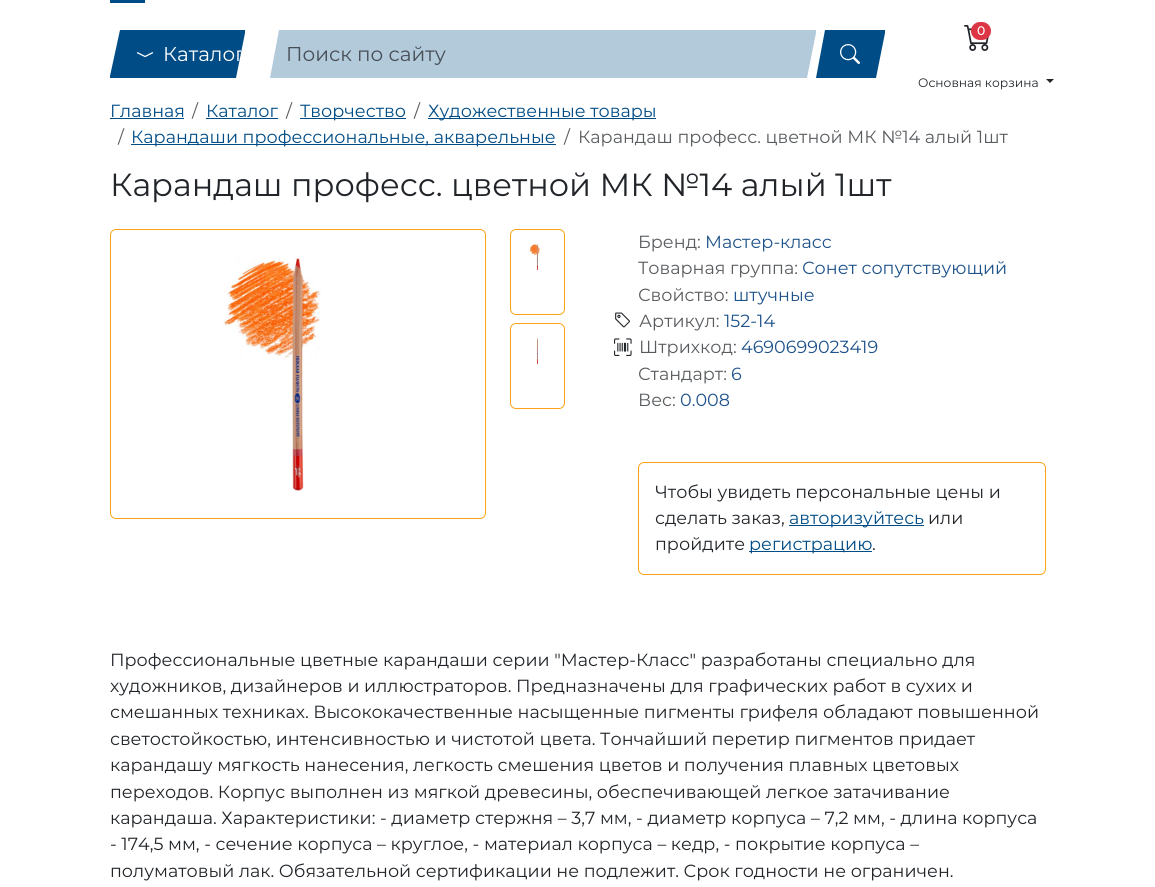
#include <cairo.h>
#include <math.h>
#include <stddef.h>

static cairo_t *ctx;

static void use_color(int r, int g, int b) {
    cairo_set_source_rgb(ctx, r / 255.0, g / 255.0, b / 255.0);
}

static void round_rect(double x, double y, double w, double h, double r) {
    cairo_new_sub_path(ctx);
    cairo_arc(ctx, x + w - r, y + h - r, r, 0, M_PI / 2);
    cairo_arc(ctx, x + r, y + h - r, r, M_PI / 2, M_PI);
    cairo_arc(ctx, x + r, y + r, r, M_PI, 1.5 * M_PI);
    cairo_arc(ctx, x + w - r, y + r, r, 1.5 * M_PI, 2 * M_PI);
    cairo_close_path(ctx);
}

static void picture(const char *path, double x, double y, double w, double h) {
    cairo_surface_t *image = cairo_image_surface_create_from_png(path);
    cairo_save(ctx);
    cairo_set_source_surface(ctx, image, x, y);
    cairo_rectangle(ctx, x, y, w, h);
    cairo_fill(ctx);
    cairo_restore(ctx);
    cairo_surface_destroy(image);
}

int main(void) {
    cairo_surface_t *surface = cairo_image_surface_create(CAIRO_FORMAT_RGB24, 1155, 887);
    ctx = cairo_create(surface);
    cairo_font_options_t *options = cairo_font_options_create();
    cairo_font_options_set_hint_metrics(options, CAIRO_HINT_METRICS_OFF);
    cairo_font_options_set_hint_style(options, CAIRO_HINT_STYLE_NONE);
    cairo_set_font_options(ctx, options);
    cairo_set_miter_limit(ctx, 4);
    use_color(255, 255, 255);
    cairo_paint(ctx);
    use_color(0, 76, 134);
    cairo_rectangle(ctx, 110, 0, 35, 3);
    cairo_fill(ctx);
    cairo_new_path(ctx);
    cairo_move_to(ctx, 120, 30);
    cairo_line_to(ctx, 245, 30);
    cairo_line_to(ctx, 245, 33);
    cairo_line_to(ctx, 236, 78);
    cairo_line_to(ctx, 110, 78);
    cairo_line_to(ctx, 110, 76);
    cairo_close_path(ctx);
    cairo_fill(ctx);
    picture("img1.png", 136, 52, 18, 6);
    cairo_save(ctx);
    cairo_new_path(ctx);
    cairo_move_to(ctx, 119.5, 30.5);
    cairo_line_to(ctx, 245.5, 30.5);
    cairo_line_to(ctx, 235.5, 78.5);
    cairo_line_to(ctx, 109.5, 78.5);
    cairo_close_path(ctx);
    cairo_clip(ctx);
    cairo_select_font_face(ctx, "Montserrat", CAIRO_FONT_SLANT_NORMAL, CAIRO_FONT_WEIGHT_NORMAL);
    cairo_set_font_size(ctx, 20);
    use_color(255, 255, 255);
    cairo_move_to(ctx, 163, 61);
    cairo_show_text(ctx, "Каталог");
    cairo_restore(ctx);
    use_color(179, 202, 219);
    cairo_new_path(ctx);
    cairo_move_to(ctx, 279, 30);
    cairo_line_to(ctx, 816, 30);
    cairo_line_to(ctx, 816, 33);
    cairo_line_to(ctx, 807, 78);
    cairo_line_to(ctx, 270, 78);
    cairo_close_path(ctx);
    cairo_fill(ctx);
    cairo_select_font_face(ctx, "Montserrat", CAIRO_FONT_SLANT_NORMAL, CAIRO_FONT_WEIGHT_NORMAL);
    cairo_set_font_size(ctx, 20);
    use_color(70, 78, 86);
    cairo_move_to(ctx, 286, 61);
    cairo_show_text(ctx, "Поиск по сайту");
    use_color(0, 76, 134);
    cairo_new_path(ctx);
    cairo_move_to(ctx, 825, 30);
    cairo_line_to(ctx, 885, 30);
    cairo_line_to(ctx, 885, 33);
    cairo_line_to(ctx, 876, 78);
    cairo_line_to(ctx, 816, 78);
    cairo_close_path(ctx);
    cairo_fill(ctx);
    picture("img2.png", 840, 44, 20, 20);
    picture("img3.png", 964, 25, 25, 26);
    use_color(220, 53, 69);
    round_rect(971, 22, 20, 18, 9);
    cairo_fill(ctx);
    cairo_select_font_face(ctx, "Montserrat", CAIRO_FONT_SLANT_NORMAL, CAIRO_FONT_WEIGHT_BOLD);
    cairo_set_font_size(ctx, 12);
    use_color(255, 255, 255);
    cairo_move_to(ctx, 977, 35);
    cairo_show_text(ctx, "0");
    cairo_select_font_face(ctx, "Montserrat", CAIRO_FONT_SLANT_NORMAL, CAIRO_FONT_WEIGHT_NORMAL);
    cairo_set_font_size(ctx, 12.25);
    use_color(33, 37, 41);
    cairo_move_to(ctx, 918, 87);
    cairo_show_text(ctx, "Основная корзина");
    cairo_new_path(ctx);
    cairo_move_to(ctx, 1046, 79);
    cairo_line_to(ctx, 1054, 79);
    cairo_line_to(ctx, 1050, 83);
    cairo_close_path(ctx);
    cairo_fill(ctx);
    cairo_set_font_size(ctx, 17.6);
    use_color(0, 76, 134);
    cairo_move_to(ctx, 110, 117);
    cairo_show_text(ctx, "Главная");
    cairo_rectangle(ctx, 110, 118, 74, 1);
    cairo_fill(ctx);
    use_color(89, 92, 95);
    cairo_move_to(ctx, 192, 117);
    cairo_show_text(ctx, "/");
    use_color(0, 76, 134);
    cairo_move_to(ctx, 206, 117);
    cairo_show_text(ctx, "Каталог");
    cairo_rectangle(ctx, 206, 118, 72, 1);
    cairo_fill(ctx);
    use_color(89, 92, 95);
    cairo_move_to(ctx, 286, 117);
    cairo_show_text(ctx, "/");
    use_color(0, 76, 134);
    cairo_rectangle(ctx, 300, 118, 106, 1);
    cairo_fill(ctx);
    cairo_move_to(ctx, 300, 117);
    cairo_show_text(ctx, "Творчество");
    use_color(89, 92, 95);
    cairo_move_to(ctx, 414, 117);
    cairo_show_text(ctx, "/");
    use_color(0, 76, 134);
    cairo_rectangle(ctx, 428, 118, 228, 1);
    cairo_fill(ctx);
    cairo_move_to(ctx, 428, 117);
    cairo_show_text(ctx, "Художественные товары");
    use_color(89, 92, 95);
    cairo_move_to(ctx, 118, 143);
    cairo_show_text(ctx, "/");
    use_color(0, 76, 134);
    cairo_rectangle(ctx, 131, 144, 425, 1);
    cairo_fill(ctx);
    cairo_move_to(ctx, 131, 143);
    cairo_show_text(ctx, "Карандаши профессиональные, акварельные");
    use_color(89, 92, 95);
    cairo_move_to(ctx, 564, 143);
    cairo_show_text(ctx, "/");
    cairo_move_to(ctx, 578, 143);
    cairo_show_text(ctx, "Карандаш професс. цветной МК №14 алый 1шт");
    cairo_set_font_size(ctx, 32);
    use_color(33, 37, 41);
    cairo_move_to(ctx, 110, 196);
    cairo_show_text(ctx, "Карандаш професс. цветной МК №14 алый 1шт");
    round_rect(110.5, 229.5, 375, 289, 5.5);
    use_color(252, 163, 24);
    cairo_set_line_width(ctx, 1);
    cairo_stroke(ctx);
    picture("img4.png", 223, 257, 103, 234);
    round_rect(510.5, 229.5, 54, 85, 5.5);
    cairo_stroke(ctx);
    picture("img5.png", 529, 244, 11, 27);
    round_rect(510.5, 323.5, 54, 85, 5.5);
    cairo_stroke(ctx);
    picture("img6.png", 536, 338, 2, 27);
    cairo_set_font_size(ctx, 17.6);
    use_color(89, 92, 95);
    cairo_move_to(ctx, 638, 248);
    cairo_show_text(ctx, "Бренд:");
    use_color(30, 82, 138);
    cairo_move_to(ctx, 705, 248);
    cairo_show_text(ctx, "Мастер-класс");
    use_color(89, 92, 95);
    cairo_move_to(ctx, 638, 274);
    cairo_show_text(ctx, "Товарная группа:");
    use_color(30, 82, 138);
    cairo_move_to(ctx, 802, 274);
    cairo_show_text(ctx, "Сонет сопутствующий");
    use_color(89, 92, 95);
    cairo_move_to(ctx, 638, 301);
    cairo_show_text(ctx, "Свойство:");
    use_color(30, 82, 138);
    cairo_move_to(ctx, 733, 301);
    cairo_show_text(ctx, "штучные");
    picture("img7.png", 615, 312, 15, 16);
    use_color(89, 92, 95);
    cairo_move_to(ctx, 639, 327);
    cairo_show_text(ctx, "Артикул:");
    use_color(30, 82, 138);
    cairo_move_to(ctx, 724, 327);
    cairo_show_text(ctx, "152-14");
    picture("img8.png", 614, 338, 18, 18);
    use_color(89, 92, 95);
    cairo_move_to(ctx, 639, 353);
    cairo_show_text(ctx, "Штрихкод:");
    use_color(30, 82, 138);
    cairo_move_to(ctx, 741, 353);
    cairo_show_text(ctx, "4690699023419");
    use_color(89, 92, 95);
    cairo_move_to(ctx, 638, 380);
    cairo_show_text(ctx, "Стандарт:");
    use_color(30, 82, 138);
    cairo_move_to(ctx, 731, 380);
    cairo_show_text(ctx, "6");
    use_color(89, 92, 95);
    cairo_move_to(ctx, 638, 406);
    cairo_show_text(ctx, "Вес:");
    use_color(30, 82, 138);
    cairo_move_to(ctx, 680, 406);
    cairo_show_text(ctx, "0.008");
    round_rect(638.5, 462.5, 407, 112, 5.5);
    use_color(252, 163, 24);
    cairo_stroke(ctx);
    use_color(33, 37, 41);
    cairo_move_to(ctx, 655, 498);
    cairo_show_text(ctx, "Чтобы увидеть персональные цены и");
    cairo_move_to(ctx, 655, 524);
    cairo_show_text(ctx, "сделать заказ,");
    use_color(0, 76, 134);
    cairo_rectangle(ctx, 789, 525, 135, 1);
    cairo_fill(ctx);
    cairo_move_to(ctx, 789, 524);
    cairo_show_text(ctx, "авторизуйтесь");
    use_color(33, 37, 41);
    cairo_move_to(ctx, 928, 524);
    cairo_show_text(ctx, "или");
    cairo_move_to(ctx, 655, 550);
    cairo_show_text(ctx, "пройдите");
    use_color(0, 76, 134);
    cairo_rectangle(ctx, 749, 551, 123, 1);
    cairo_fill(ctx);
    cairo_move_to(ctx, 749, 550);
    cairo_show_text(ctx, "регистрацию");
    use_color(33, 37, 41);
    cairo_move_to(ctx, 872, 550);
    cairo_show_text(ctx, ".");
    cairo_move_to(ctx, 110, 666);
    cairo_show_text(ctx, "Профессиональные цветные карандаши серии \"Мастер-Класс\" разработаны специально для");
    cairo_move_to(ctx, 110, 692);
    cairo_show_text(ctx, "художников, дизайнеров и иллюстраторов. Предназначены для графических работ в сухих и");
    cairo_move_to(ctx, 110, 718);
    cairo_show_text(ctx, "смешанных техниках. Высококачественные насыщенные пигменты грифеля обладают повышенной");
    cairo_move_to(ctx, 110, 745);
    cairo_show_text(ctx, "светостойкостью, интенсивностью и чистотой цвета. Тончайший перетир пигментов придает");
    cairo_move_to(ctx, 110, 771);
    cairo_show_text(ctx, "карандашу мягкость нанесения, легкость смешения цветов и получения плавных цветовых");
    cairo_move_to(ctx, 110, 798);
    cairo_show_text(ctx, "переходов. Корпус выполнен из мягкой древесины, обеспечивающей легкое затачивание");
    cairo_move_to(ctx, 110, 824);
    cairo_show_text(ctx, "карандаша. Характеристики: - диаметр стержня – 3,7 мм, - диаметр корпуса – 7,2 мм, - длина корпуса");
    cairo_move_to(ctx, 110, 850);
    cairo_show_text(ctx, "- 174,5 мм, - сечение корпуса – круглое, - материал корпуса – кедр, - покрытие корпуса –");
    cairo_move_to(ctx, 110, 877);
    cairo_show_text(ctx, "полуматовый лак. Обязательной сертификации не подлежит. Срок годности не ограничен.");
    cairo_surface_write_to_png(surface, "result.png");
    cairo_font_options_destroy(options);
    cairo_destroy(ctx);
    cairo_surface_destroy(surface);
    return 0;
}
